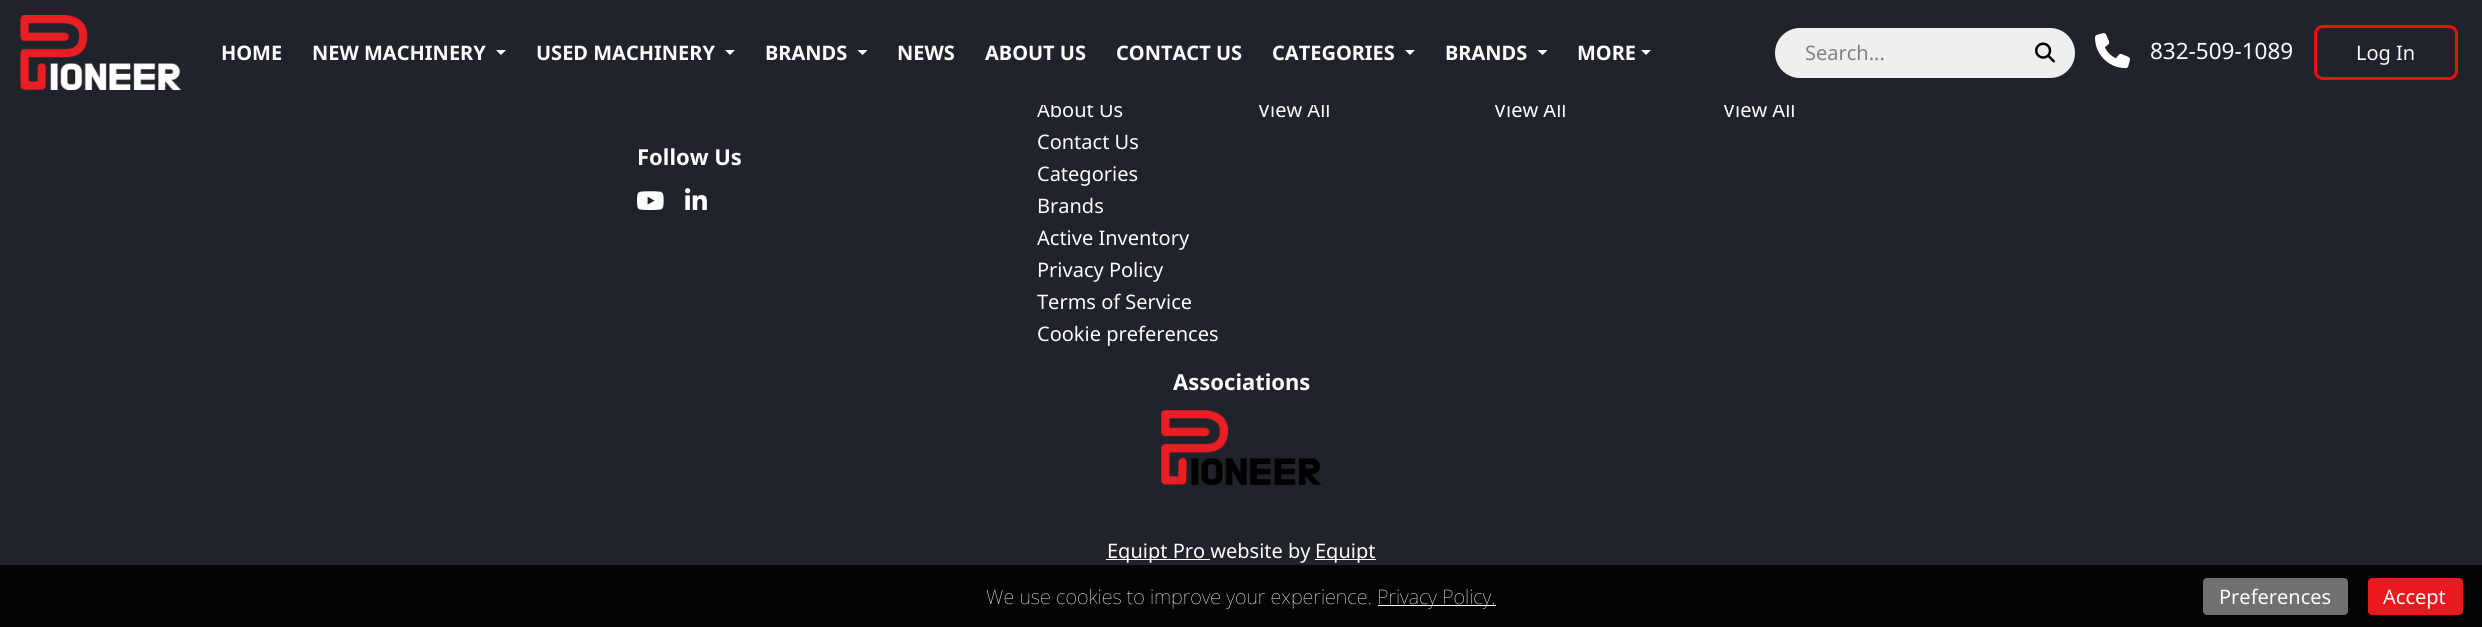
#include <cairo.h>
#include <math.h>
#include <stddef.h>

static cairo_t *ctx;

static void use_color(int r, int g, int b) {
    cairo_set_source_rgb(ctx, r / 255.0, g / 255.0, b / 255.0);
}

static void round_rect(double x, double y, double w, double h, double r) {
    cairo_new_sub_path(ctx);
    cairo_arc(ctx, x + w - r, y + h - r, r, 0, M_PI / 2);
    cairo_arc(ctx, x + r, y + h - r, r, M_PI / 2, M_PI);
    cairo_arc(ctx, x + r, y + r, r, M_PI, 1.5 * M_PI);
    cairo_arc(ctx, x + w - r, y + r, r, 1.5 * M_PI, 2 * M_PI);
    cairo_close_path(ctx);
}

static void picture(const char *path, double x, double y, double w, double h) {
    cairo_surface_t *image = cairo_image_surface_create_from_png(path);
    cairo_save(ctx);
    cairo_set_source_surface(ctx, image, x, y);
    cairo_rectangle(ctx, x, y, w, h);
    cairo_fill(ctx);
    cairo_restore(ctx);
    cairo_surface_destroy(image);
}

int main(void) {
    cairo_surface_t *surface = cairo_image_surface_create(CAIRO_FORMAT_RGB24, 2482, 627);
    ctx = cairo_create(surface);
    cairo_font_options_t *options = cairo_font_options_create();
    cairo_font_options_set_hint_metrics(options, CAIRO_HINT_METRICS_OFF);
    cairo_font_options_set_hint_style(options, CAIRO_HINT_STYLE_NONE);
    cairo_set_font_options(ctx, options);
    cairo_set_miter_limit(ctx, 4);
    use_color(33, 35, 44);
    cairo_paint(ctx);
    cairo_select_font_face(ctx, "Noto Sans", CAIRO_FONT_SLANT_NORMAL, CAIRO_FONT_WEIGHT_NORMAL);
    cairo_set_font_size(ctx, 20);
    use_color(253, 251, 251);
    cairo_move_to(ctx, 1037, 117);
    cairo_show_text(ctx, "About Us");
    cairo_move_to(ctx, 1258, 117);
    cairo_show_text(ctx, "View All");
    cairo_move_to(ctx, 1494, 117);
    cairo_show_text(ctx, "View All");
    cairo_move_to(ctx, 1723, 117);
    cairo_show_text(ctx, "View All");
    use_color(33, 35, 44);
    cairo_rectangle(ctx, 1041, 101, 753, 4);
    cairo_fill(ctx);
    picture("img1.png", 20, 15, 162, 75);
    cairo_select_font_face(ctx, "Noto Sans", CAIRO_FONT_SLANT_NORMAL, CAIRO_FONT_WEIGHT_BOLD);
    use_color(253, 251, 251);
    cairo_move_to(ctx, 221, 60);
    cairo_show_text(ctx, "HOME");
    cairo_move_to(ctx, 312, 60);
    cairo_show_text(ctx, "NEW MACHINERY");
    use_color(255, 255, 255);
    cairo_new_path(ctx);
    cairo_move_to(ctx, 496, 50);
    cairo_line_to(ctx, 506, 50);
    cairo_line_to(ctx, 501, 55);
    cairo_close_path(ctx);
    cairo_fill(ctx);
    use_color(253, 251, 251);
    cairo_move_to(ctx, 536, 60);
    cairo_show_text(ctx, "USED MACHINERY");
    use_color(255, 255, 255);
    cairo_new_path(ctx);
    cairo_move_to(ctx, 725, 50);
    cairo_line_to(ctx, 735, 50);
    cairo_line_to(ctx, 730, 55);
    cairo_close_path(ctx);
    cairo_fill(ctx);
    use_color(253, 251, 251);
    cairo_move_to(ctx, 765, 60);
    cairo_show_text(ctx, "BRANDS");
    use_color(255, 255, 255);
    cairo_new_path(ctx);
    cairo_move_to(ctx, 857.5, 50);
    cairo_line_to(ctx, 867.5, 50);
    cairo_line_to(ctx, 862.5, 55);
    cairo_close_path(ctx);
    cairo_fill(ctx);
    use_color(253, 251, 251);
    cairo_move_to(ctx, 897, 60);
    cairo_show_text(ctx, "NEWS");
    cairo_move_to(ctx, 985, 60);
    cairo_show_text(ctx, "ABOUT US");
    cairo_move_to(ctx, 1116, 60);
    cairo_show_text(ctx, "CONTACT US");
    cairo_move_to(ctx, 1272, 60);
    cairo_show_text(ctx, "CATEGORIES");
    use_color(255, 255, 255);
    cairo_new_path(ctx);
    cairo_move_to(ctx, 1405, 50);
    cairo_line_to(ctx, 1415, 50);
    cairo_line_to(ctx, 1410, 55);
    cairo_close_path(ctx);
    cairo_fill(ctx);
    use_color(253, 251, 251);
    cairo_move_to(ctx, 1445, 60);
    cairo_show_text(ctx, "BRANDS");
    use_color(255, 255, 255);
    cairo_new_path(ctx);
    cairo_move_to(ctx, 1537.5, 50);
    cairo_line_to(ctx, 1547.5, 50);
    cairo_line_to(ctx, 1542.5, 55);
    cairo_close_path(ctx);
    cairo_fill(ctx);
    use_color(253, 251, 251);
    cairo_move_to(ctx, 1577, 60);
    cairo_show_text(ctx, "MORE");
    use_color(255, 255, 255);
    cairo_new_path(ctx);
    cairo_move_to(ctx, 1641, 50);
    cairo_line_to(ctx, 1651, 50);
    cairo_line_to(ctx, 1646, 55);
    cairo_close_path(ctx);
    cairo_fill(ctx);
    use_color(239, 239, 239);
    round_rect(1775, 28, 300, 50, 25);
    cairo_fill(ctx);
    cairo_select_font_face(ctx, "Noto Sans", CAIRO_FONT_SLANT_NORMAL, CAIRO_FONT_WEIGHT_NORMAL);
    use_color(130, 130, 130);
    cairo_move_to(ctx, 1805, 60);
    cairo_show_text(ctx, "Search...");
    picture("img2.png", 2035, 42, 20, 21);
    picture("img3.png", 2095, 33, 35, 36);
    cairo_set_font_size(ctx, 22.5);
    use_color(253, 251, 251);
    cairo_move_to(ctx, 2150, 59);
    cairo_show_text(ctx, "832-509-1089");
    round_rect(2315.5, 26.5, 141, 52, 7.5);
    use_color(250, 11, 11);
    cairo_set_line_width(ctx, 3);
    cairo_stroke(ctx);
    cairo_set_font_size(ctx, 20);
    use_color(253, 251, 251);
    cairo_move_to(ctx, 2356, 60);
    cairo_show_text(ctx, "Log In");
    cairo_move_to(ctx, 1037, 149);
    cairo_show_text(ctx, "Contact Us");
    cairo_move_to(ctx, 1037, 181);
    cairo_show_text(ctx, "Categories");
    cairo_move_to(ctx, 1037, 213);
    cairo_show_text(ctx, "Brands");
    cairo_move_to(ctx, 1037, 245);
    cairo_show_text(ctx, "Active Inventory");
    cairo_move_to(ctx, 1037, 277);
    cairo_show_text(ctx, "Privacy Policy");
    cairo_move_to(ctx, 1037, 309);
    cairo_show_text(ctx, "Terms of Service");
    cairo_move_to(ctx, 1037, 341);
    cairo_show_text(ctx, "Cookie preferences");
    cairo_select_font_face(ctx, "Noto Sans", CAIRO_FONT_SLANT_NORMAL, CAIRO_FONT_WEIGHT_BOLD);
    cairo_set_font_size(ctx, 22);
    cairo_move_to(ctx, 637, 165);
    cairo_show_text(ctx, "Follow Us");
    picture("img4.png", 637, 191, 27, 19);
    picture("img5.png", 685, 188, 22, 22);
    cairo_move_to(ctx, 1173, 390);
    cairo_show_text(ctx, "Associations");
    picture("img6.png", 1161, 410, 161, 75);
    cairo_rectangle(ctx, 1106, 559, 104, 1);
    cairo_fill(ctx);
    cairo_select_font_face(ctx, "Noto Sans", CAIRO_FONT_SLANT_NORMAL, CAIRO_FONT_WEIGHT_NORMAL);
    cairo_set_font_size(ctx, 20);
    cairo_move_to(ctx, 1107, 558);
    cairo_show_text(ctx, "Equipt Pro website by");
    cairo_rectangle(ctx, 1315, 559, 61, 1);
    cairo_fill(ctx);
    cairo_move_to(ctx, 1315, 558);
    cairo_show_text(ctx, "Equipt");
    use_color(4, 4, 5);
    cairo_rectangle(ctx, 0, 565, 2482, 62);
    cairo_fill(ctx);
    cairo_select_font_face(ctx, "Noto Sans Thin", CAIRO_FONT_SLANT_NORMAL, CAIRO_FONT_WEIGHT_NORMAL);
    use_color(253, 251, 251);
    cairo_move_to(ctx, 986, 604);
    cairo_show_text(ctx, "We use cookies to improve your experience.");
    use_color(255, 255, 255);
    cairo_rectangle(ctx, 1378, 605, 118, 1);
    cairo_fill(ctx);
    use_color(253, 251, 251);
    cairo_move_to(ctx, 1377, 604);
    cairo_show_text(ctx, "Privacy Policy.");
    use_color(112, 112, 113);
    round_rect(2203.5, 578.5, 144, 36, 3.5);
    cairo_fill_preserve(ctx);
    cairo_set_line_width(ctx, 1);
    cairo_stroke(ctx);
    cairo_select_font_face(ctx, "Noto Sans", CAIRO_FONT_SLANT_NORMAL, CAIRO_FONT_WEIGHT_NORMAL);
    use_color(253, 251, 251);
    cairo_move_to(ctx, 2219, 604);
    cairo_show_text(ctx, "Preferences");
    use_color(234, 24, 31);
    round_rect(2368.5, 578.5, 94, 36, 3.5);
    cairo_fill_preserve(ctx);
    cairo_stroke(ctx);
    use_color(253, 251, 251);
    cairo_move_to(ctx, 2383, 604);
    cairo_show_text(ctx, "Accept");
    cairo_surface_write_to_png(surface, "result.png");
    cairo_font_options_destroy(options);
    cairo_destroy(ctx);
    cairo_surface_destroy(surface);
    return 0;
}
